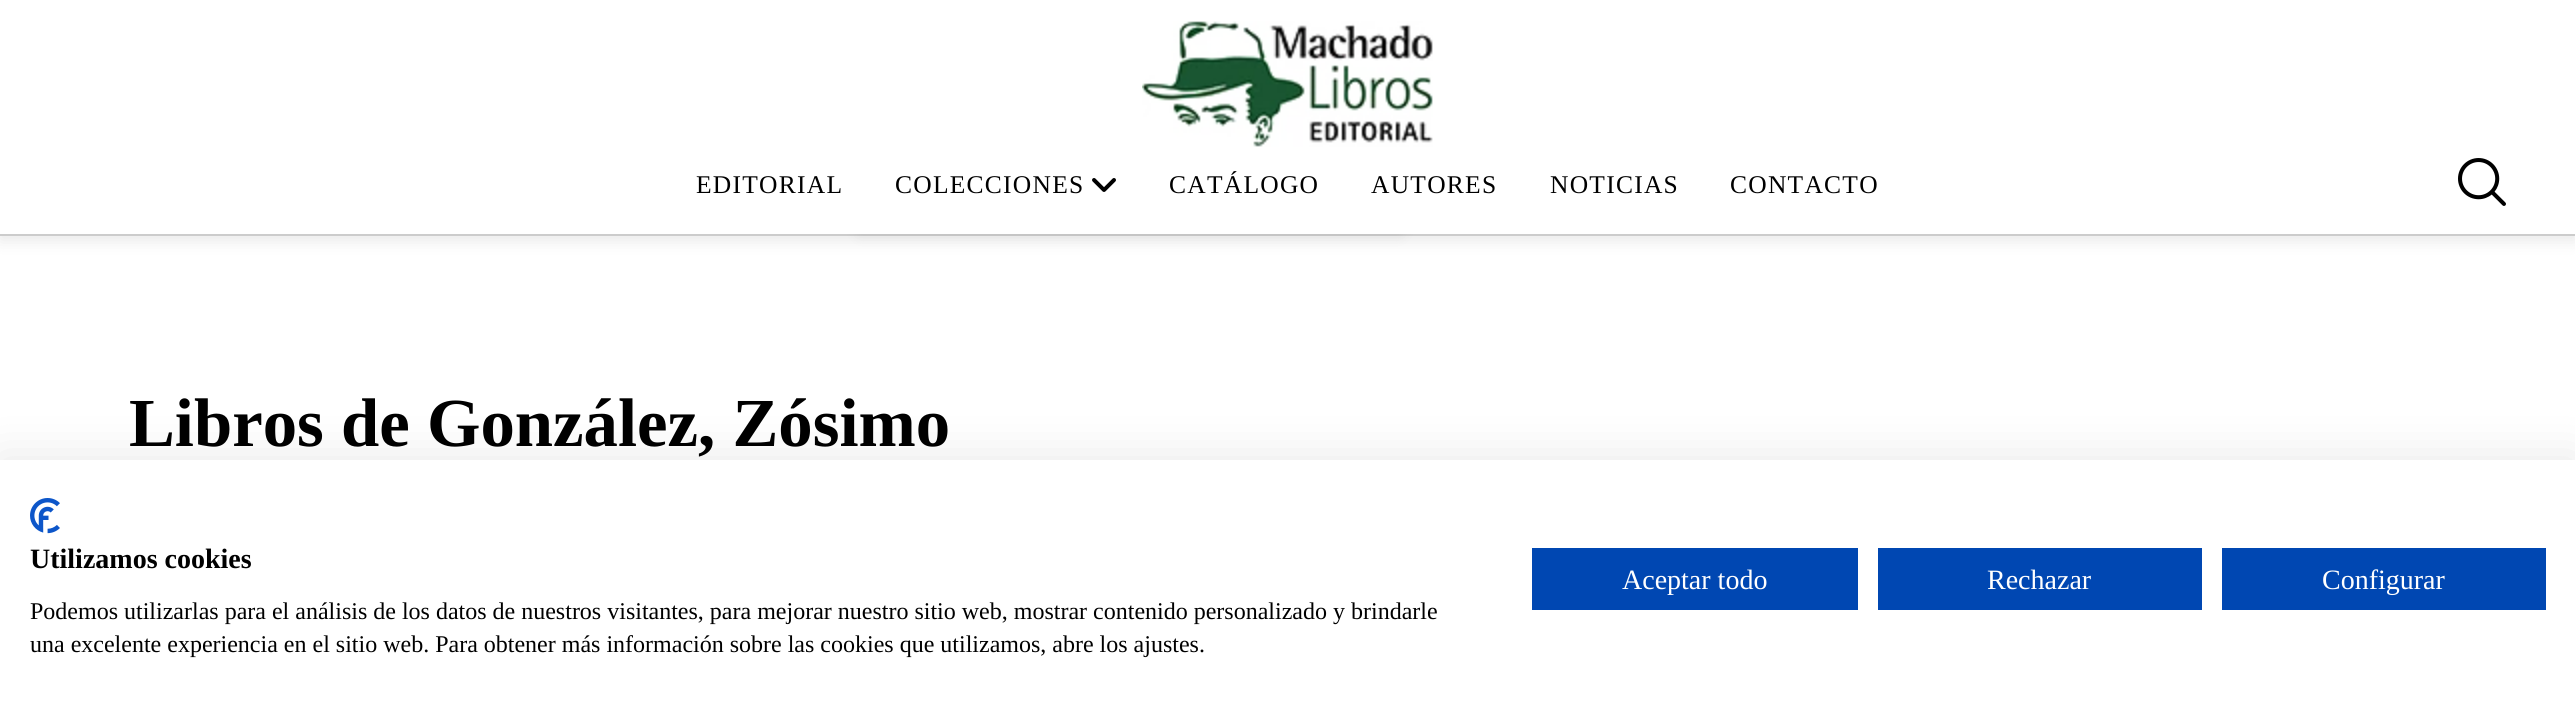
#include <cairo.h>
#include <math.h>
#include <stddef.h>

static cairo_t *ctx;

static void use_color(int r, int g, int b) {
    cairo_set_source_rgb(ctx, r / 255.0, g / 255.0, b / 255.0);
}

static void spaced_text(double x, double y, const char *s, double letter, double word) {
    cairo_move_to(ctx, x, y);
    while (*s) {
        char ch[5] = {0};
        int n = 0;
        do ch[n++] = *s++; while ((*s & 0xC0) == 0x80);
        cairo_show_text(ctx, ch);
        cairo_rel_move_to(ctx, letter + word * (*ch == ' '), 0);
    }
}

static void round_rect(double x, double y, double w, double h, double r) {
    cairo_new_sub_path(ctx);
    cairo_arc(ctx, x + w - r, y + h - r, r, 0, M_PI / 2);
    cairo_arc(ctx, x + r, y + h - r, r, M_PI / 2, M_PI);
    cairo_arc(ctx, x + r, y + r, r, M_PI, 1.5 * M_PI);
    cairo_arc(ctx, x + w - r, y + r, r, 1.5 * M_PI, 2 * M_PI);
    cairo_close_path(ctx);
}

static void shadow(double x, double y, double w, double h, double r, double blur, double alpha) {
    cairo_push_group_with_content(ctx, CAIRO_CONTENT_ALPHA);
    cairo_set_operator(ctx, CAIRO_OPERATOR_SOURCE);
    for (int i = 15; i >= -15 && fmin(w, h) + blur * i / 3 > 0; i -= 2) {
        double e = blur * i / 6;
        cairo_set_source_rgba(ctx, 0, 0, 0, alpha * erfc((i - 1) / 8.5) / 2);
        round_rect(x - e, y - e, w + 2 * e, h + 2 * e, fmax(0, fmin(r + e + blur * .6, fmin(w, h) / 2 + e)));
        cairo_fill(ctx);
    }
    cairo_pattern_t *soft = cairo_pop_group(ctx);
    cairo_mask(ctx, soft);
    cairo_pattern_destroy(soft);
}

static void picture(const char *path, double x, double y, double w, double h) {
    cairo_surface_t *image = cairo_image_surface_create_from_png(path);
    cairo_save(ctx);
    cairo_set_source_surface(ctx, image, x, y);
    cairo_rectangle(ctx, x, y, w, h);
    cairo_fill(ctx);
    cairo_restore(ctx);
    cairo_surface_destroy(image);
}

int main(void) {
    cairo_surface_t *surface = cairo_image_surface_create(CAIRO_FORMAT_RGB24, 2575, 715);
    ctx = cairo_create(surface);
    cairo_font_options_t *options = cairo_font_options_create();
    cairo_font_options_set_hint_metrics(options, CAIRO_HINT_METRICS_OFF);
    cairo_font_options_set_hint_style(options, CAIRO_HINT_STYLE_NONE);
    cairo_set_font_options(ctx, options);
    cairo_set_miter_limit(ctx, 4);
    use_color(255, 255, 255);
    cairo_paint(ctx);
    use_color(10, 10, 10);
    shadow(0, 114, 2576, 126, 0, 8, 0.1);
    use_color(204, 204, 204);
    cairo_rectangle(ctx, 0, 234, 2575, 2);
    cairo_fill(ctx);
    use_color(10, 10, 10);
    shadow(860, -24, 540, 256, 0, 8, 0.1);
    use_color(255, 255, 255);
    cairo_rectangle(ctx, 0, 0, 2575, 234);
    cairo_fill(ctx);
    picture("img1.png", 1142, 21, 291, 126);
    cairo_select_font_face(ctx, "Liberation Serif", CAIRO_FONT_SLANT_NORMAL, CAIRO_FONT_WEIGHT_NORMAL);
    cairo_set_font_size(ctx, 25.5);
    use_color(0, 0, 0);
    spaced_text(696, 193, "EDITORIAL", 1.25, 0);
    spaced_text(895, 193, "COLECCIONES", 1.25, 0);
    picture("img2.png", 1092, 178, 24, 14);
    spaced_text(1169, 193, "CATÁLOGO", 1.25, 0);
    spaced_text(1371, 193, "AUTORES", 1.25, 0);
    spaced_text(1550, 193, "NOTICIAS", 1.25, 0);
    spaced_text(1730, 193, "CONTACTO", 1.25, 0);
    picture("img3.png", 2458, 158, 48, 48);
    cairo_select_font_face(ctx, "Liberation Serif", CAIRO_FONT_SLANT_NORMAL, CAIRO_FONT_WEIGHT_BOLD);
    cairo_set_font_size(ctx, 68.75);
    cairo_move_to(ctx, 129, 446);
    cairo_show_text(ctx, "Libros de González, Zósimo");
    use_color(0, 0, 0);
    shadow(0, 460, 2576, 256, 0, 24, 0.1);
    use_color(255, 255, 255);
    cairo_rectangle(ctx, 0, 460, 2575, 255);
    cairo_fill(ctx);
    picture("img4.png", 30, 498, 30, 36);
    cairo_set_font_size(ctx, 28);
    use_color(0, 0, 0);
    cairo_move_to(ctx, 30, 568);
    cairo_show_text(ctx, "Utilizamos cookies");
    cairo_select_font_face(ctx, "Liberation Serif", CAIRO_FONT_SLANT_NORMAL, CAIRO_FONT_WEIGHT_NORMAL);
    cairo_set_font_size(ctx, 24);
    cairo_move_to(ctx, 30, 619);
    cairo_show_text(ctx, "Podemos utilizarlas para el análisis de los datos de nuestros visitantes, para mejorar nuestro sitio web, mostrar contenido personalizado y brindarle");
    cairo_move_to(ctx, 30, 652);
    cairo_show_text(ctx, "una excelente experiencia en el sitio web. Para obtener más información sobre las cookies que utilizamos, abre los ajustes.");
    use_color(0, 71, 178);
    cairo_rectangle(ctx, 1532, 548, 326, 62);
    cairo_fill(ctx);
    cairo_set_font_size(ctx, 28);
    use_color(255, 255, 255);
    cairo_move_to(ctx, 1622, 589);
    cairo_show_text(ctx, "Aceptar todo");
    use_color(0, 71, 178);
    cairo_rectangle(ctx, 1878, 548, 324, 62);
    cairo_fill(ctx);
    use_color(255, 255, 255);
    cairo_move_to(ctx, 1987, 589);
    cairo_show_text(ctx, "Rechazar");
    use_color(0, 71, 178);
    cairo_rectangle(ctx, 2222, 548, 324, 62);
    cairo_fill(ctx);
    use_color(255, 255, 255);
    cairo_move_to(ctx, 2322, 589);
    cairo_show_text(ctx, "Configurar");
    cairo_surface_write_to_png(surface, "result.png");
    cairo_font_options_destroy(options);
    cairo_destroy(ctx);
    cairo_surface_destroy(surface);
    return 0;
}
